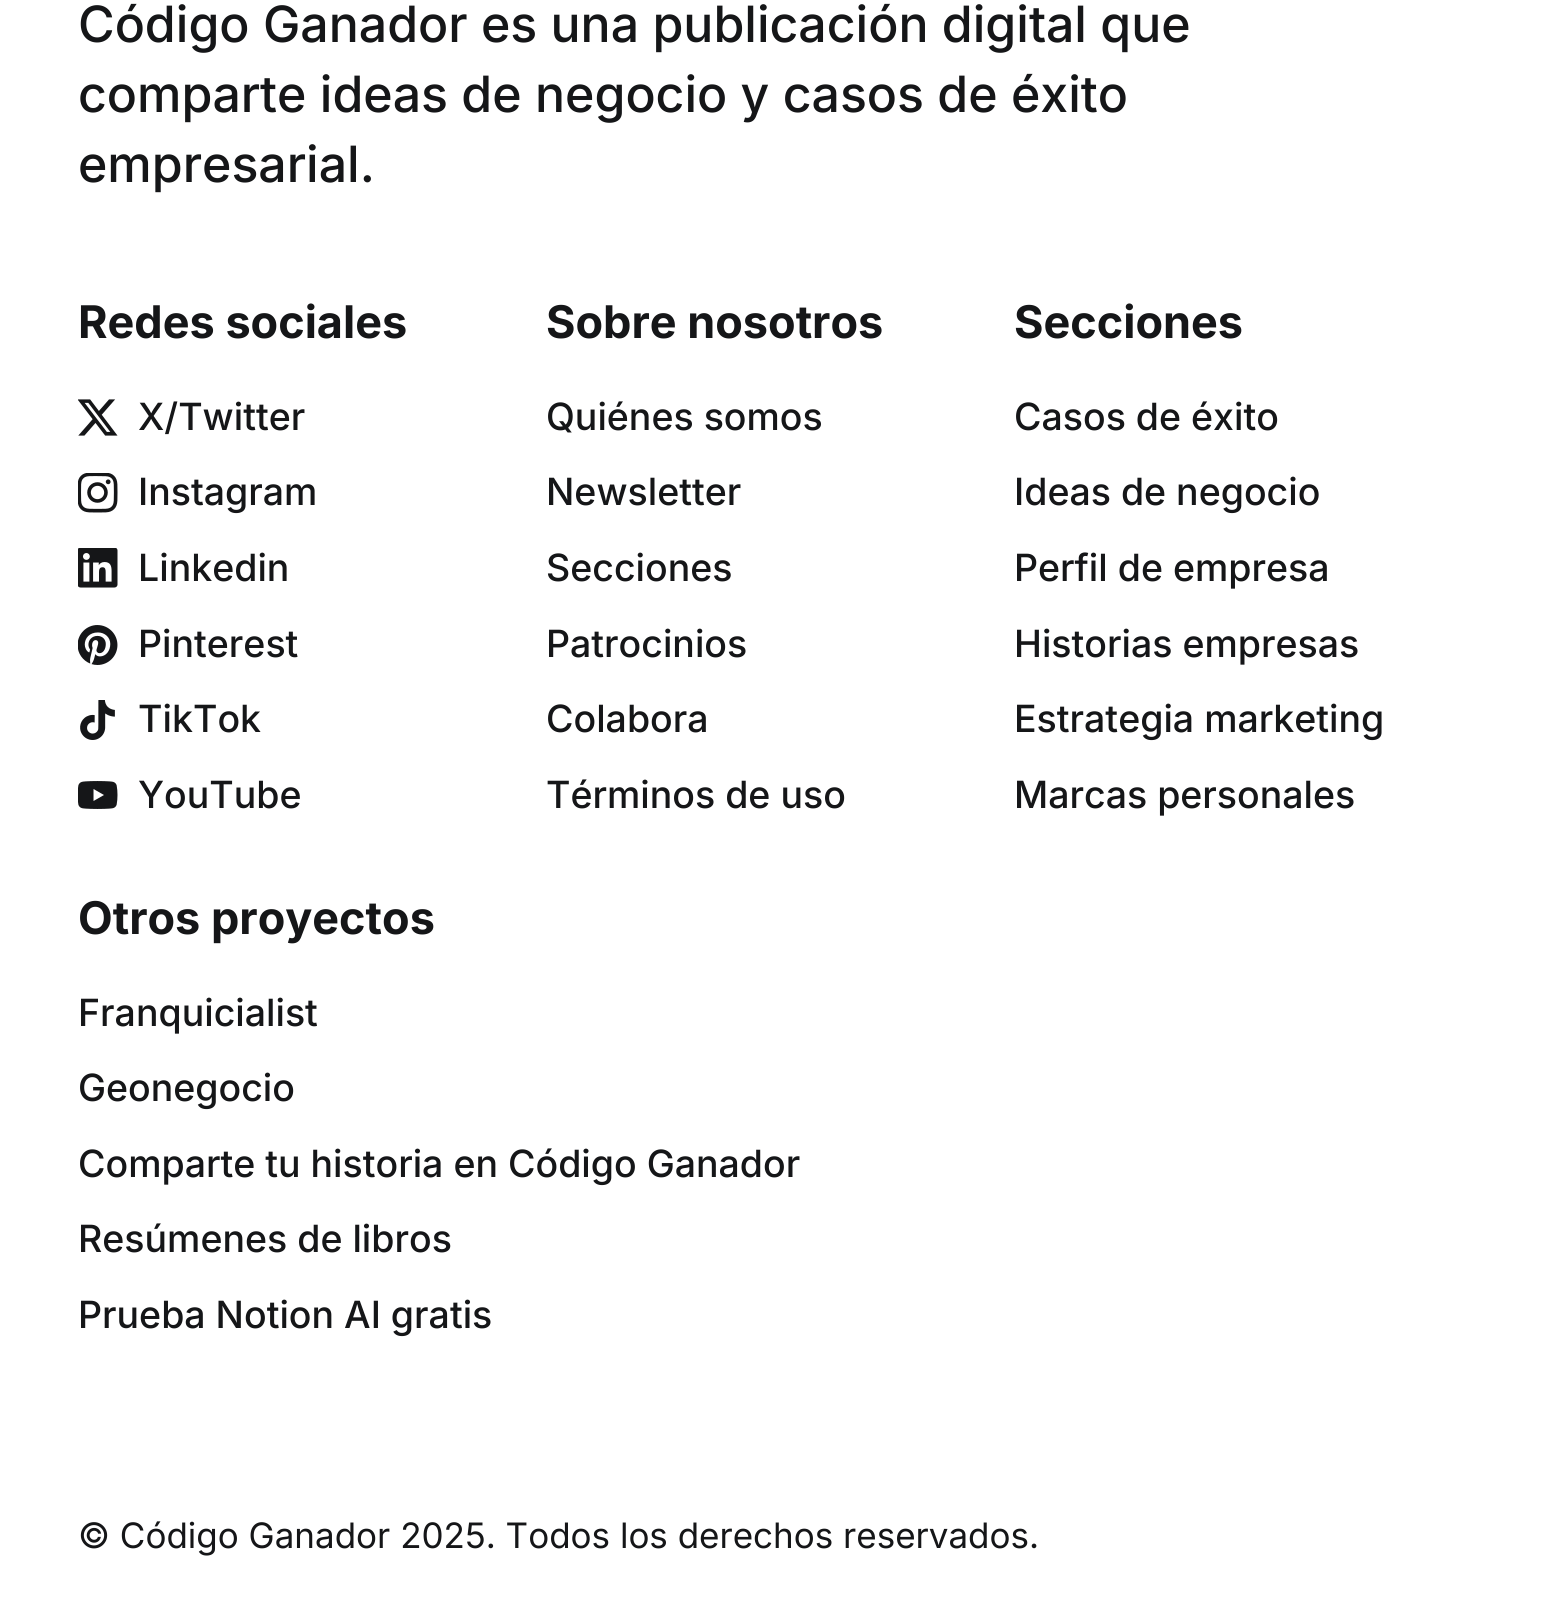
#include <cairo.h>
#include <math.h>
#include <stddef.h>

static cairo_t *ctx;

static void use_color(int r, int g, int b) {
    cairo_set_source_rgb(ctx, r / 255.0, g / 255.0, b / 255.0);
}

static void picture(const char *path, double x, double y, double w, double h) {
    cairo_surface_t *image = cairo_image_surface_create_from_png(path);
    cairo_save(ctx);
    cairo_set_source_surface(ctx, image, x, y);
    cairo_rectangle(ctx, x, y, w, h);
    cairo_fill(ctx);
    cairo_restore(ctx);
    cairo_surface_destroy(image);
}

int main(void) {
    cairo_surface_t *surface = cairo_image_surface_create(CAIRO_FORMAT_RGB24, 1559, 1608);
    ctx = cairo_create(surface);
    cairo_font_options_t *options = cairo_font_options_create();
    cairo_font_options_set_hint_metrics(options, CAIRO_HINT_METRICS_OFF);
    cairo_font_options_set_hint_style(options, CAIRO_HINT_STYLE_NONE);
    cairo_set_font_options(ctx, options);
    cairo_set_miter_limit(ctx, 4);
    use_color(255, 255, 255);
    cairo_paint(ctx);
    cairo_select_font_face(ctx, "Inter Medium", CAIRO_FONT_SLANT_NORMAL, CAIRO_FONT_WEIGHT_NORMAL);
    cairo_set_font_size(ctx, 50);
    use_color(21, 22, 24);
    cairo_move_to(ctx, 78, 42);
    cairo_show_text(ctx, "Código Ganador es una publicación digital que");
    cairo_move_to(ctx, 78, 112);
    cairo_show_text(ctx, "comparte ideas de negocio y casos de éxito");
    cairo_move_to(ctx, 78, 182);
    cairo_show_text(ctx, "empresarial.");
    cairo_select_font_face(ctx, "Inter", CAIRO_FONT_SLANT_NORMAL, CAIRO_FONT_WEIGHT_BOLD);
    cairo_set_font_size(ctx, 45);
    cairo_move_to(ctx, 78, 338);
    cairo_show_text(ctx, "Redes sociales");
    picture("img1.png", 78, 399, 40, 37);
    cairo_select_font_face(ctx, "Inter Medium", CAIRO_FONT_SLANT_NORMAL, CAIRO_FONT_WEIGHT_NORMAL);
    cairo_set_font_size(ctx, 37.5);
    cairo_move_to(ctx, 138, 430);
    cairo_show_text(ctx, "X/Twitter");
    picture("img2.png", 78, 473, 40, 40);
    cairo_move_to(ctx, 138, 505);
    cairo_show_text(ctx, "Instagram");
    picture("img3.png", 78, 548, 40, 40);
    cairo_move_to(ctx, 138, 581);
    cairo_show_text(ctx, "Linkedin");
    picture("img4.png", 78, 625, 40, 40);
    cairo_move_to(ctx, 138, 657);
    cairo_show_text(ctx, "Pinterest");
    picture("img5.png", 80, 700, 35, 40);
    cairo_move_to(ctx, 138, 732);
    cairo_show_text(ctx, "TikTok");
    picture("img6.png", 78, 781, 40, 28);
    cairo_move_to(ctx, 138, 808);
    cairo_show_text(ctx, "YouTube");
    cairo_select_font_face(ctx, "Inter", CAIRO_FONT_SLANT_NORMAL, CAIRO_FONT_WEIGHT_BOLD);
    cairo_set_font_size(ctx, 45);
    cairo_move_to(ctx, 546, 338);
    cairo_show_text(ctx, "Sobre nosotros");
    cairo_select_font_face(ctx, "Inter Medium", CAIRO_FONT_SLANT_NORMAL, CAIRO_FONT_WEIGHT_NORMAL);
    cairo_set_font_size(ctx, 37.5);
    cairo_move_to(ctx, 546, 430);
    cairo_show_text(ctx, "Quiénes somos");
    cairo_move_to(ctx, 546, 505);
    cairo_show_text(ctx, "Newsletter");
    cairo_move_to(ctx, 546, 581);
    cairo_show_text(ctx, "Secciones");
    cairo_move_to(ctx, 546, 657);
    cairo_show_text(ctx, "Patrocinios");
    cairo_move_to(ctx, 546, 732);
    cairo_show_text(ctx, "Colabora");
    cairo_move_to(ctx, 546, 808);
    cairo_show_text(ctx, "Términos de uso");
    cairo_select_font_face(ctx, "Inter", CAIRO_FONT_SLANT_NORMAL, CAIRO_FONT_WEIGHT_BOLD);
    cairo_set_font_size(ctx, 45);
    cairo_move_to(ctx, 1014, 338);
    cairo_show_text(ctx, "Secciones");
    cairo_select_font_face(ctx, "Inter Medium", CAIRO_FONT_SLANT_NORMAL, CAIRO_FONT_WEIGHT_NORMAL);
    cairo_set_font_size(ctx, 37.5);
    cairo_move_to(ctx, 1014, 430);
    cairo_show_text(ctx, "Casos de éxito");
    cairo_move_to(ctx, 1014, 505);
    cairo_show_text(ctx, "Ideas de negocio");
    cairo_move_to(ctx, 1014, 581);
    cairo_show_text(ctx, "Perfil de empresa");
    cairo_move_to(ctx, 1014, 657);
    cairo_show_text(ctx, "Historias empresas");
    cairo_move_to(ctx, 1014, 732);
    cairo_show_text(ctx, "Estrategia marketing");
    cairo_move_to(ctx, 1014, 808);
    cairo_show_text(ctx, "Marcas personales");
    cairo_select_font_face(ctx, "Inter", CAIRO_FONT_SLANT_NORMAL, CAIRO_FONT_WEIGHT_BOLD);
    cairo_set_font_size(ctx, 45);
    cairo_move_to(ctx, 78, 934);
    cairo_show_text(ctx, "Otros proyectos");
    cairo_select_font_face(ctx, "Inter Medium", CAIRO_FONT_SLANT_NORMAL, CAIRO_FONT_WEIGHT_NORMAL);
    cairo_set_font_size(ctx, 37.5);
    cairo_move_to(ctx, 78, 1026);
    cairo_show_text(ctx, "Franquicialist");
    cairo_move_to(ctx, 78, 1101);
    cairo_show_text(ctx, "Geonegocio");
    cairo_move_to(ctx, 78, 1177);
    cairo_show_text(ctx, "Comparte tu historia en Código Ganador");
    cairo_move_to(ctx, 78, 1252);
    cairo_show_text(ctx, "Resúmenes de libros");
    cairo_move_to(ctx, 78, 1328);
    cairo_show_text(ctx, "Prueba Notion AI gratis");
    cairo_select_font_face(ctx, "Inter", CAIRO_FONT_SLANT_NORMAL, CAIRO_FONT_WEIGHT_NORMAL);
    cairo_set_font_size(ctx, 35);
    cairo_move_to(ctx, 78, 1548);
    cairo_show_text(ctx, "© Código Ganador 2025. Todos los derechos reservados.");
    cairo_surface_write_to_png(surface, "result.png");
    cairo_font_options_destroy(options);
    cairo_destroy(ctx);
    cairo_surface_destroy(surface);
    return 0;
}
